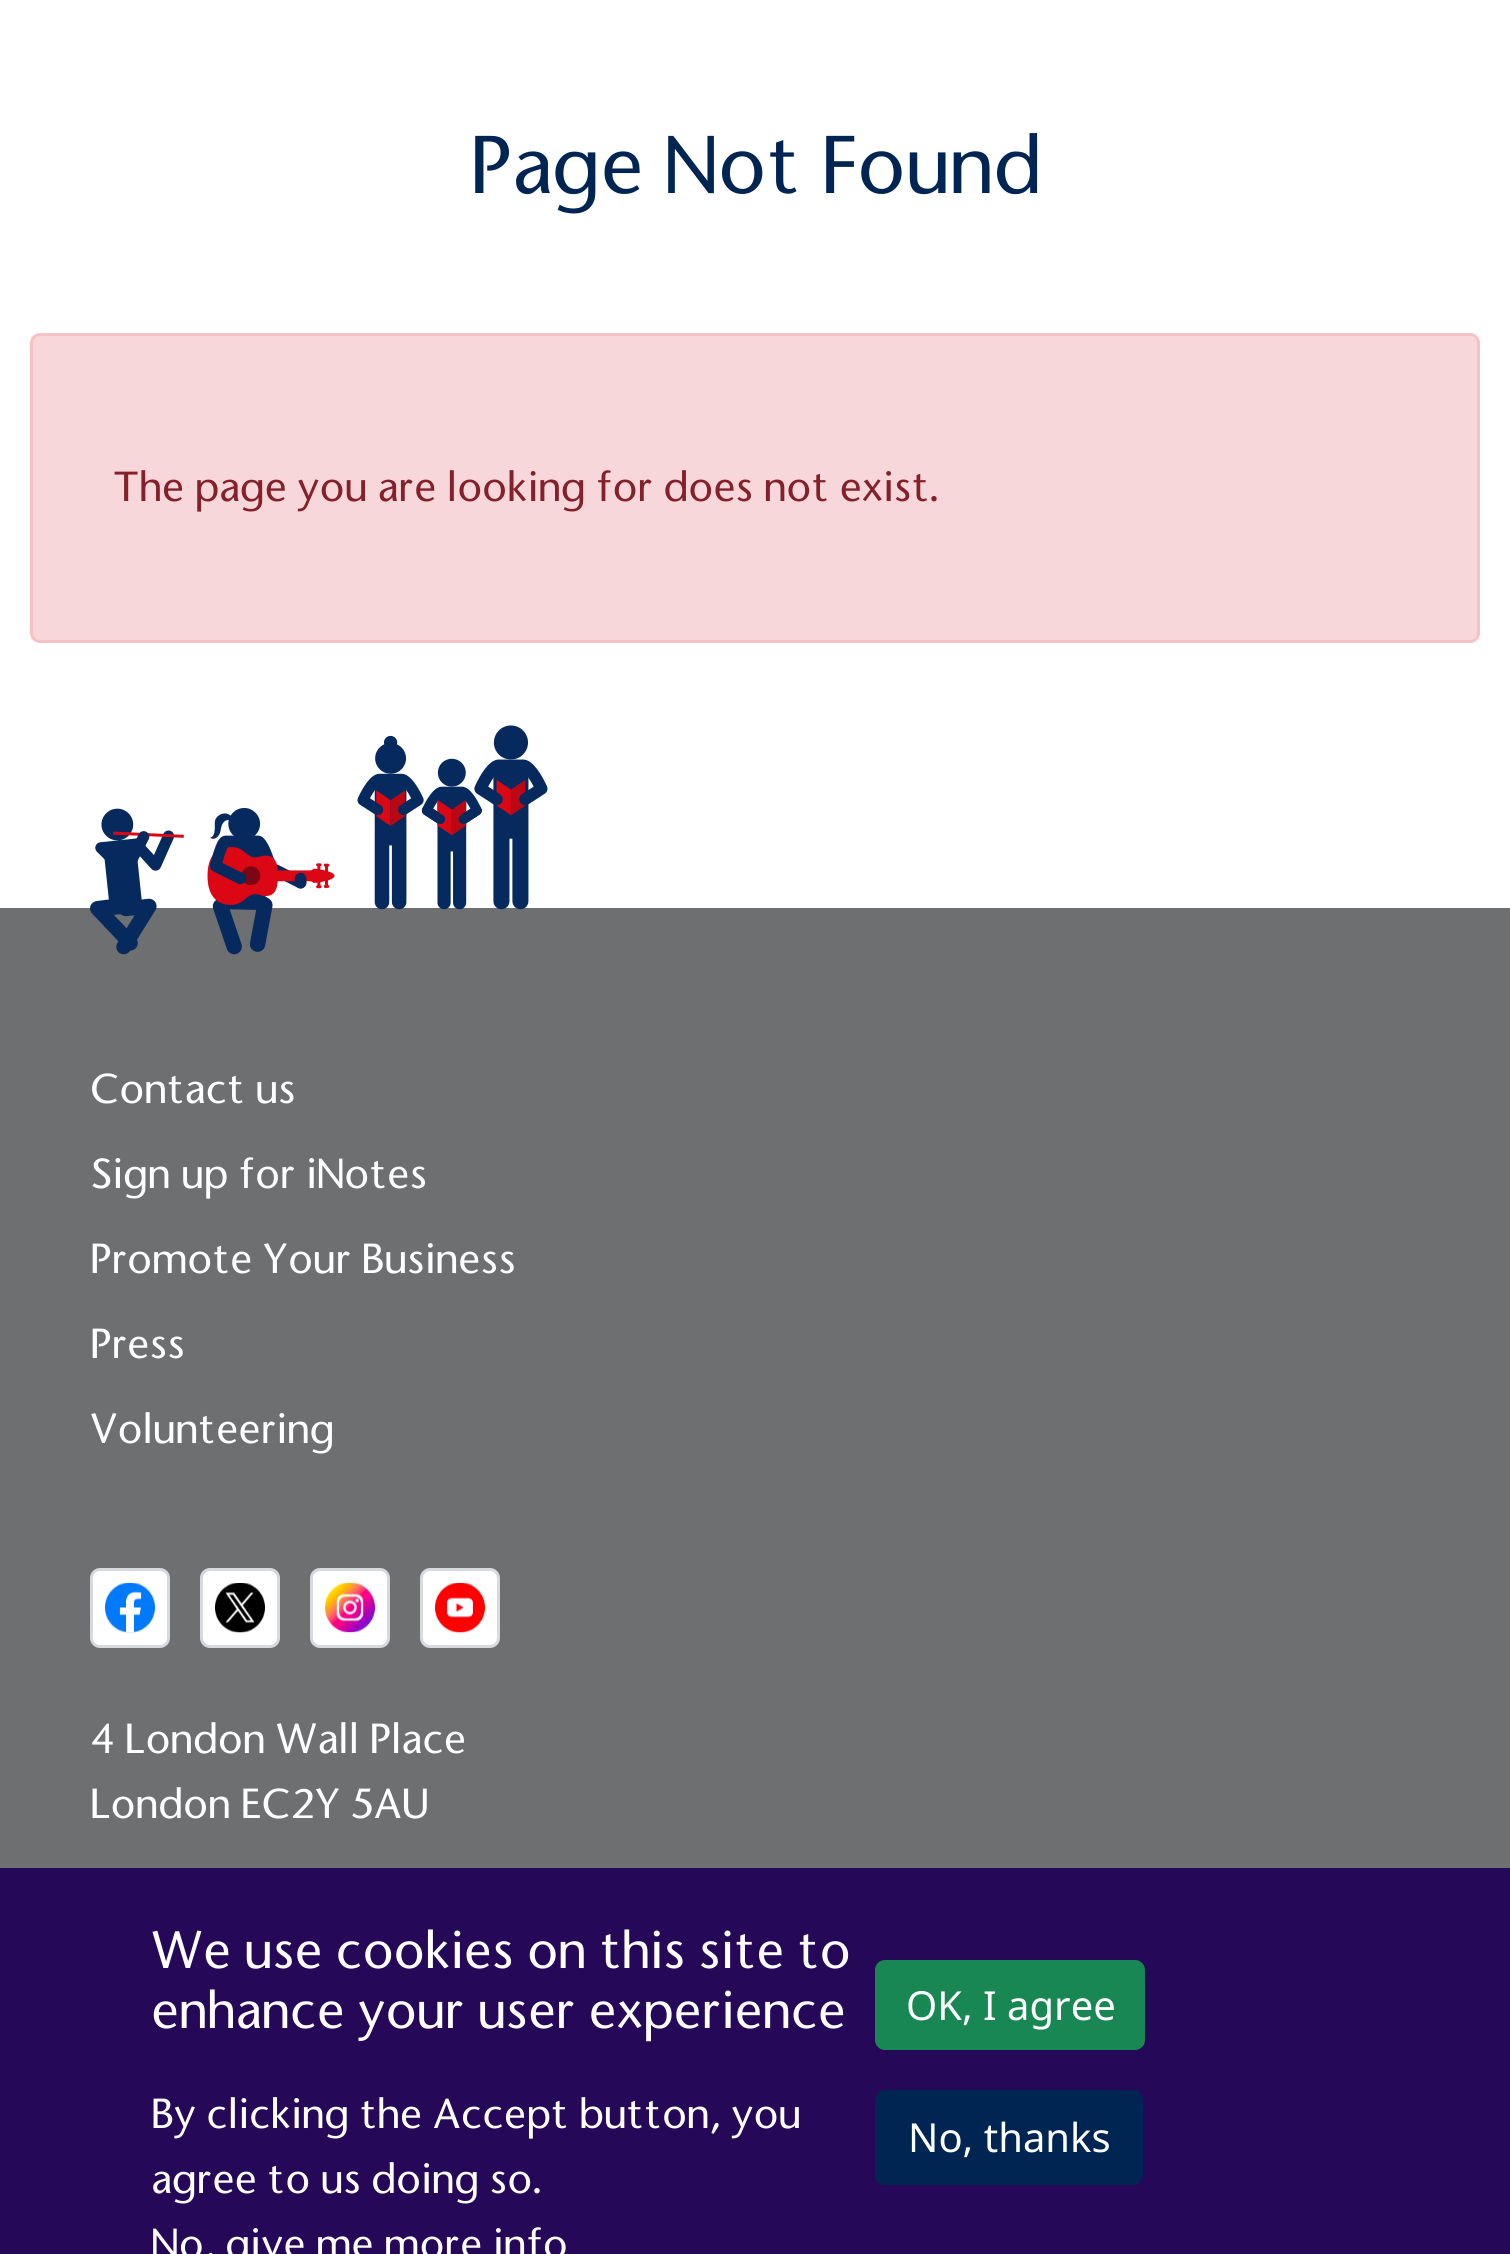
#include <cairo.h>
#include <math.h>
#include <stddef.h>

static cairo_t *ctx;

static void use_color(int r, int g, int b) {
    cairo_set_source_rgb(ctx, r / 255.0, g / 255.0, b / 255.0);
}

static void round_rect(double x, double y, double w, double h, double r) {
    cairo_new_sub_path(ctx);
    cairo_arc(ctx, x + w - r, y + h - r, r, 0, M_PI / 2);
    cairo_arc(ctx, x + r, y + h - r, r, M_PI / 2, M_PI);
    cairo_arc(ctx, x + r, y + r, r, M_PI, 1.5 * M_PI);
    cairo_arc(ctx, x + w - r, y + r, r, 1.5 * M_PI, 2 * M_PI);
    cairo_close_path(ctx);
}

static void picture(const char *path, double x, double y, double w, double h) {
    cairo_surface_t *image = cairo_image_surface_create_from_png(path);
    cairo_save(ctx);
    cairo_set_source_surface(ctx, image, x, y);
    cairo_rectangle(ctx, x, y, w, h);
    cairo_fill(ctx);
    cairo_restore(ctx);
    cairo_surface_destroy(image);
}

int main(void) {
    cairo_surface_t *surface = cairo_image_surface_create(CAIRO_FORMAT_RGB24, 1510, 2254);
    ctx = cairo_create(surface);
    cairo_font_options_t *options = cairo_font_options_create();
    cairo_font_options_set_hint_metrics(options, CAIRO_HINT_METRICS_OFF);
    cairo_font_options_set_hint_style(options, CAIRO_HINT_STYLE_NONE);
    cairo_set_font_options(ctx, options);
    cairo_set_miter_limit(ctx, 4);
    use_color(255, 255, 255);
    cairo_paint(ctx);
    cairo_select_font_face(ctx, "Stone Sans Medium", CAIRO_FONT_SLANT_NORMAL, CAIRO_FONT_WEIGHT_NORMAL);
    cairo_set_font_size(ctx, 77.75);
    use_color(0, 37, 83);
    cairo_move_to(ctx, 470, 193);
    cairo_show_text(ctx, "Page Not Found");
    use_color(248, 215, 218);
    round_rect(31.5, 334.5, 1447, 307, 8.5);
    cairo_fill_preserve(ctx);
    use_color(245, 194, 199);
    cairo_set_line_width(ctx, 3);
    cairo_stroke(ctx);
    cairo_set_font_size(ctx, 40);
    use_color(132, 32, 41);
    cairo_move_to(ctx, 113, 501);
    cairo_show_text(ctx, "The page you are looking for does not exist.");
    use_color(109, 111, 113);
    cairo_rectangle(ctx, 0, 908, 1510, 960);
    cairo_fill(ctx);
    picture("img1.png", 90, 725, 458, 230);
    use_color(255, 255, 255);
    cairo_move_to(ctx, 90, 1103);
    cairo_show_text(ctx, "Contact us");
    cairo_move_to(ctx, 90, 1188);
    cairo_show_text(ctx, "Sign up for iNotes");
    cairo_move_to(ctx, 90, 1273);
    cairo_show_text(ctx, "Promote Your Business");
    cairo_move_to(ctx, 90, 1358);
    cairo_show_text(ctx, "Press");
    cairo_move_to(ctx, 90, 1443);
    cairo_show_text(ctx, "Volunteering");
    round_rect(91.5, 1569.5, 77, 77, 8.5);
    cairo_fill_preserve(ctx);
    use_color(214, 218, 223);
    cairo_stroke(ctx);
    picture("img2.png", 105, 1583, 50, 50);
    use_color(255, 255, 255);
    round_rect(201.5, 1569.5, 77, 77, 8.5);
    cairo_fill_preserve(ctx);
    use_color(214, 218, 223);
    cairo_stroke(ctx);
    picture("img3.png", 215, 1583, 50, 50);
    use_color(255, 255, 255);
    round_rect(311.5, 1569.5, 77, 77, 8.5);
    cairo_fill_preserve(ctx);
    use_color(214, 218, 223);
    cairo_stroke(ctx);
    picture("img4.png", 325, 1583, 50, 50);
    use_color(255, 255, 255);
    round_rect(421.5, 1569.5, 77, 77, 8.5);
    cairo_fill_preserve(ctx);
    use_color(214, 218, 223);
    cairo_stroke(ctx);
    picture("img5.png", 435, 1583, 50, 50);
    use_color(255, 255, 255);
    cairo_move_to(ctx, 90, 1753);
    cairo_show_text(ctx, "4 London Wall Place");
    cairo_move_to(ctx, 90, 1818);
    cairo_show_text(ctx, "London EC2Y 5AU");
    use_color(37, 8, 88);
    cairo_rectangle(ctx, 0, 1868, 1510, 386);
    cairo_fill(ctx);
    cairo_set_font_size(ctx, 50);
    use_color(255, 255, 255);
    cairo_move_to(ctx, 151, 1968);
    cairo_show_text(ctx, "We use cookies on this site to");
    cairo_move_to(ctx, 151, 2028);
    cairo_show_text(ctx, "enhance your user experience");
    cairo_set_font_size(ctx, 40);
    cairo_move_to(ctx, 151, 2128);
    cairo_show_text(ctx, "By clicking the Accept button, you");
    cairo_move_to(ctx, 151, 2193);
    cairo_show_text(ctx, "agree to us doing so.");
    cairo_move_to(ctx, 151, 2258);
    cairo_show_text(ctx, "No, give me more info");
    use_color(25, 135, 84);
    round_rect(875, 1960, 270, 90, 10);
    cairo_fill(ctx);
    cairo_select_font_face(ctx, "Noto Sans", CAIRO_FONT_SLANT_NORMAL, CAIRO_FONT_WEIGHT_NORMAL);
    use_color(255, 255, 255);
    cairo_move_to(ctx, 906, 2020);
    cairo_show_text(ctx, "OK, I agree");
    use_color(0, 37, 83);
    round_rect(876.5, 2091.5, 265, 92, 8.5);
    cairo_fill_preserve(ctx);
    cairo_stroke(ctx);
    use_color(255, 255, 255);
    cairo_move_to(ctx, 908, 2152);
    cairo_show_text(ctx, "No, thanks");
    cairo_surface_write_to_png(surface, "result.png");
    cairo_font_options_destroy(options);
    cairo_destroy(ctx);
    cairo_surface_destroy(surface);
    return 0;
}
